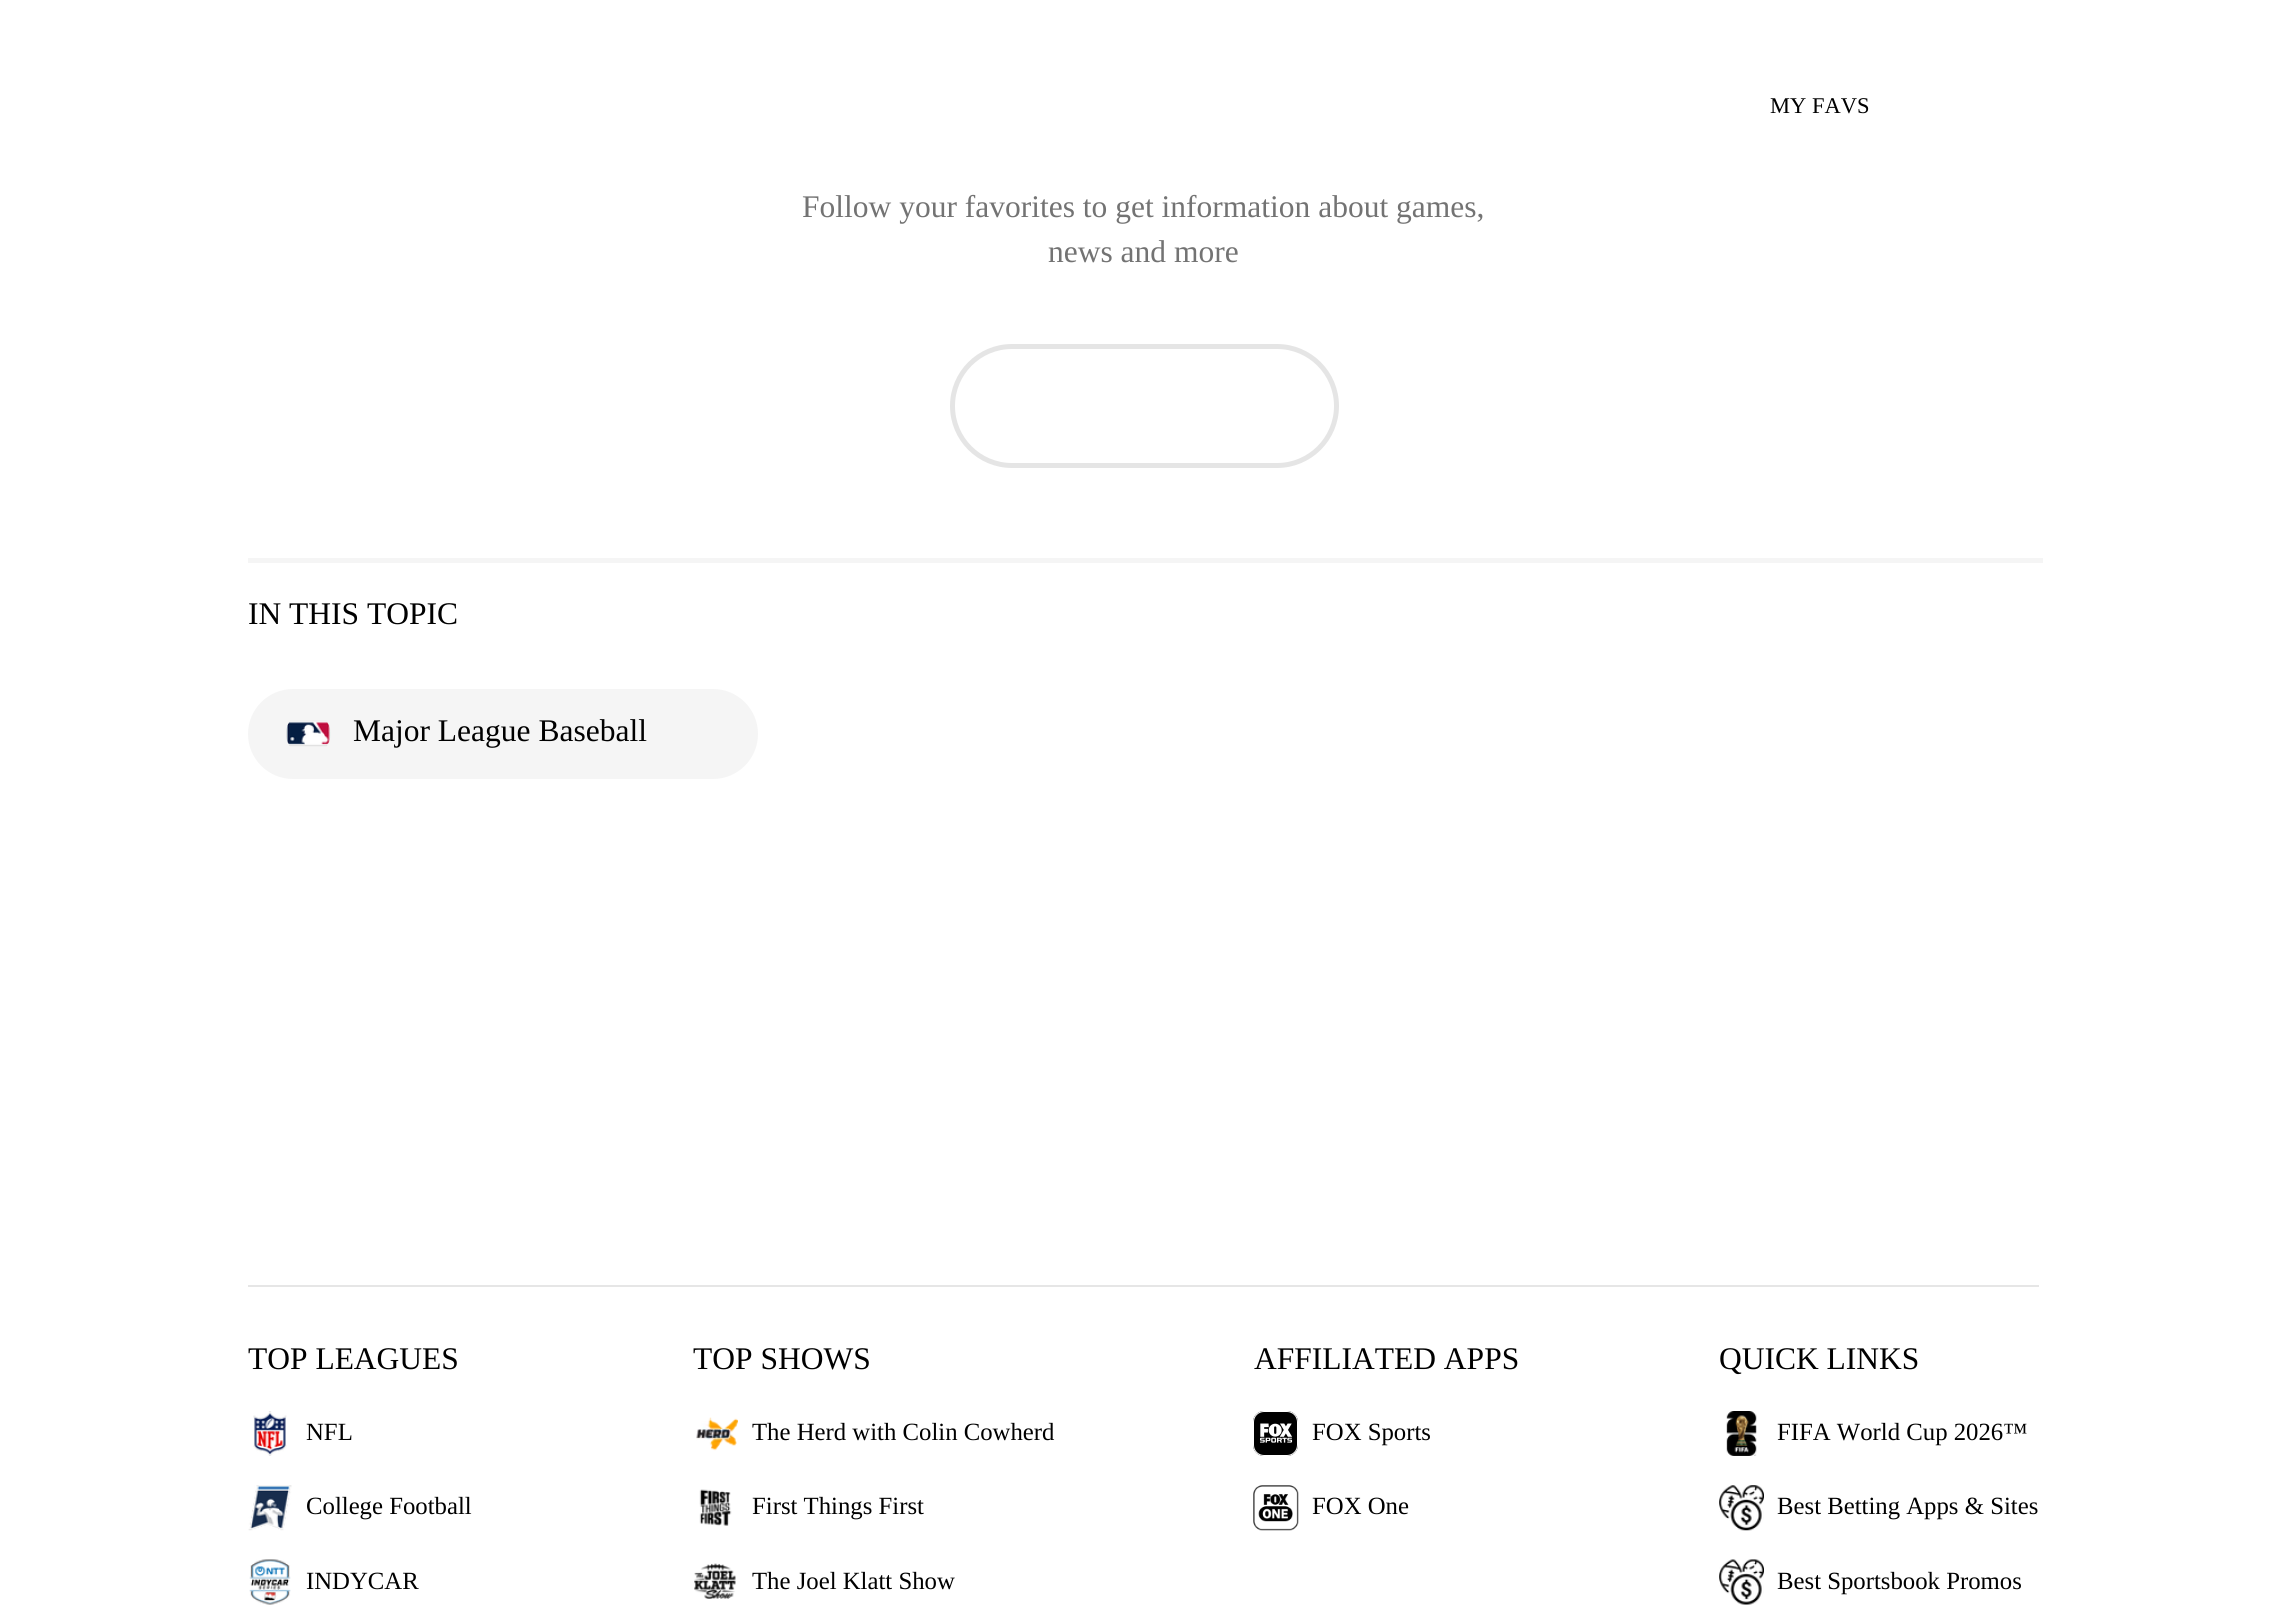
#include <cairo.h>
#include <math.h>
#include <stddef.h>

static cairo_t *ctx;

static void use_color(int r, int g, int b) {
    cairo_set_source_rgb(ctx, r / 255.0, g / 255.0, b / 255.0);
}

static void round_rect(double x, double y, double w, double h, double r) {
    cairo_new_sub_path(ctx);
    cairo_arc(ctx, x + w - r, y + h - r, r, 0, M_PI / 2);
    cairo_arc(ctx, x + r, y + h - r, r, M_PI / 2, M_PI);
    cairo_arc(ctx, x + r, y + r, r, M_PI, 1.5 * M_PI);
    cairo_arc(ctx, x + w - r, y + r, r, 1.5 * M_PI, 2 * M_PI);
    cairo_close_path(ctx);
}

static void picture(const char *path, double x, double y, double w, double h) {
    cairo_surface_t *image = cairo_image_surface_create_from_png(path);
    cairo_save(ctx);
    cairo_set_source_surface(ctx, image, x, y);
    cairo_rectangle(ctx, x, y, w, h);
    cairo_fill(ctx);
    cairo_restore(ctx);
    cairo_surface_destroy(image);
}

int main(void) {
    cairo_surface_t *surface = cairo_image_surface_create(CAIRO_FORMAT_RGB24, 2284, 1621);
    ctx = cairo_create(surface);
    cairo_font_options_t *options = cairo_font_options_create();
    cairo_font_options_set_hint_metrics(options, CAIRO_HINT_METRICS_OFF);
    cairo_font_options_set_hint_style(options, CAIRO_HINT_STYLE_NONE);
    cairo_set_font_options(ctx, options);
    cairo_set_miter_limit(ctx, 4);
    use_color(255, 255, 255);
    cairo_paint(ctx);
    cairo_select_font_face(ctx, "Liberation Serif", CAIRO_FONT_SLANT_NORMAL, CAIRO_FONT_WEIGHT_NORMAL);
    cairo_set_font_size(ctx, 22.5);
    use_color(0, 0, 0);
    cairo_move_to(ctx, 1770, 113);
    cairo_show_text(ctx, "MY FAVS");
    cairo_set_font_size(ctx, 31.5);
    use_color(115, 115, 115);
    cairo_move_to(ctx, 802, 217);
    cairo_show_text(ctx, "Follow your favorites to get information about games,");
    cairo_move_to(ctx, 1048, 262);
    cairo_show_text(ctx, "news and more");
    round_rect(952.5, 346.5, 384, 119, 59.5);
    use_color(229, 229, 229);
    cairo_set_line_width(ctx, 5);
    cairo_stroke(ctx);
    use_color(245, 245, 245);
    cairo_rectangle(ctx, 248, 558, 1795, 5);
    cairo_fill(ctx);
    use_color(0, 0, 0);
    cairo_move_to(ctx, 248, 624);
    cairo_show_text(ctx, "IN THIS TOPIC");
    use_color(245, 245, 245);
    round_rect(250.5, 691.5, 505, 85, 42.5);
    cairo_fill_preserve(ctx);
    cairo_stroke(ctx);
    picture("img1.png", 286, 720, 45, 27);
    use_color(0, 0, 0);
    cairo_move_to(ctx, 353, 741);
    cairo_show_text(ctx, "Major League Baseball");
    use_color(230, 230, 230);
    cairo_rectangle(ctx, 248, 1285, 1791, 2);
    cairo_fill(ctx);
    use_color(0, 0, 0);
    cairo_move_to(ctx, 248, 1369);
    cairo_show_text(ctx, "TOP LEAGUES");
    picture("img2.png", 253, 1411, 34, 45);
    cairo_set_font_size(ctx, 24.75);
    cairo_move_to(ctx, 306, 1440);
    cairo_show_text(ctx, "NFL");
    picture("img3.png", 248, 1485, 44, 46);
    cairo_move_to(ctx, 306, 1514);
    cairo_show_text(ctx, "College Football");
    picture("img4.png", 249, 1559, 42, 46);
    cairo_move_to(ctx, 306, 1589);
    cairo_show_text(ctx, "INDYCAR");
    cairo_set_font_size(ctx, 31.5);
    cairo_move_to(ctx, 693, 1369);
    cairo_show_text(ctx, "TOP SHOWS");
    picture("img5.png", 696, 1417, 42, 34);
    cairo_set_font_size(ctx, 24.75);
    cairo_move_to(ctx, 752, 1440);
    cairo_show_text(ctx, "The Herd with Colin Cowherd");
    picture("img6.png", 699, 1489, 33, 37);
    cairo_move_to(ctx, 752, 1514);
    cairo_show_text(ctx, "First Things First");
    picture("img7.png", 694, 1563, 42, 36);
    cairo_move_to(ctx, 752, 1589);
    cairo_show_text(ctx, "The Joel Klatt Show");
    cairo_set_font_size(ctx, 31.5);
    cairo_move_to(ctx, 1254, 1369);
    cairo_show_text(ctx, "AFFILIATED APPS");
    picture("img8.png", 1253, 1411, 45, 45);
    cairo_set_font_size(ctx, 24.75);
    cairo_move_to(ctx, 1312, 1440);
    cairo_show_text(ctx, "FOX Sports");
    picture("img9.png", 1253, 1485, 46, 46);
    cairo_move_to(ctx, 1312, 1514);
    cairo_show_text(ctx, "FOX One");
    cairo_set_font_size(ctx, 31.5);
    cairo_move_to(ctx, 1719, 1369);
    cairo_show_text(ctx, "QUICK LINKS");
    picture("img10.png", 1726, 1411, 31, 45);
    cairo_set_font_size(ctx, 24.75);
    cairo_move_to(ctx, 1777, 1440);
    cairo_show_text(ctx, "FIFA World Cup 2026™");
    picture("img11.png", 1719, 1485, 45, 46);
    cairo_move_to(ctx, 1777, 1514);
    cairo_show_text(ctx, "Best Betting Apps & Sites");
    picture("img12.png", 1719, 1559, 45, 46);
    cairo_move_to(ctx, 1777, 1589);
    cairo_show_text(ctx, "Best Sportsbook Promos");
    cairo_surface_write_to_png(surface, "result.png");
    cairo_font_options_destroy(options);
    cairo_destroy(ctx);
    cairo_surface_destroy(surface);
    return 0;
}
